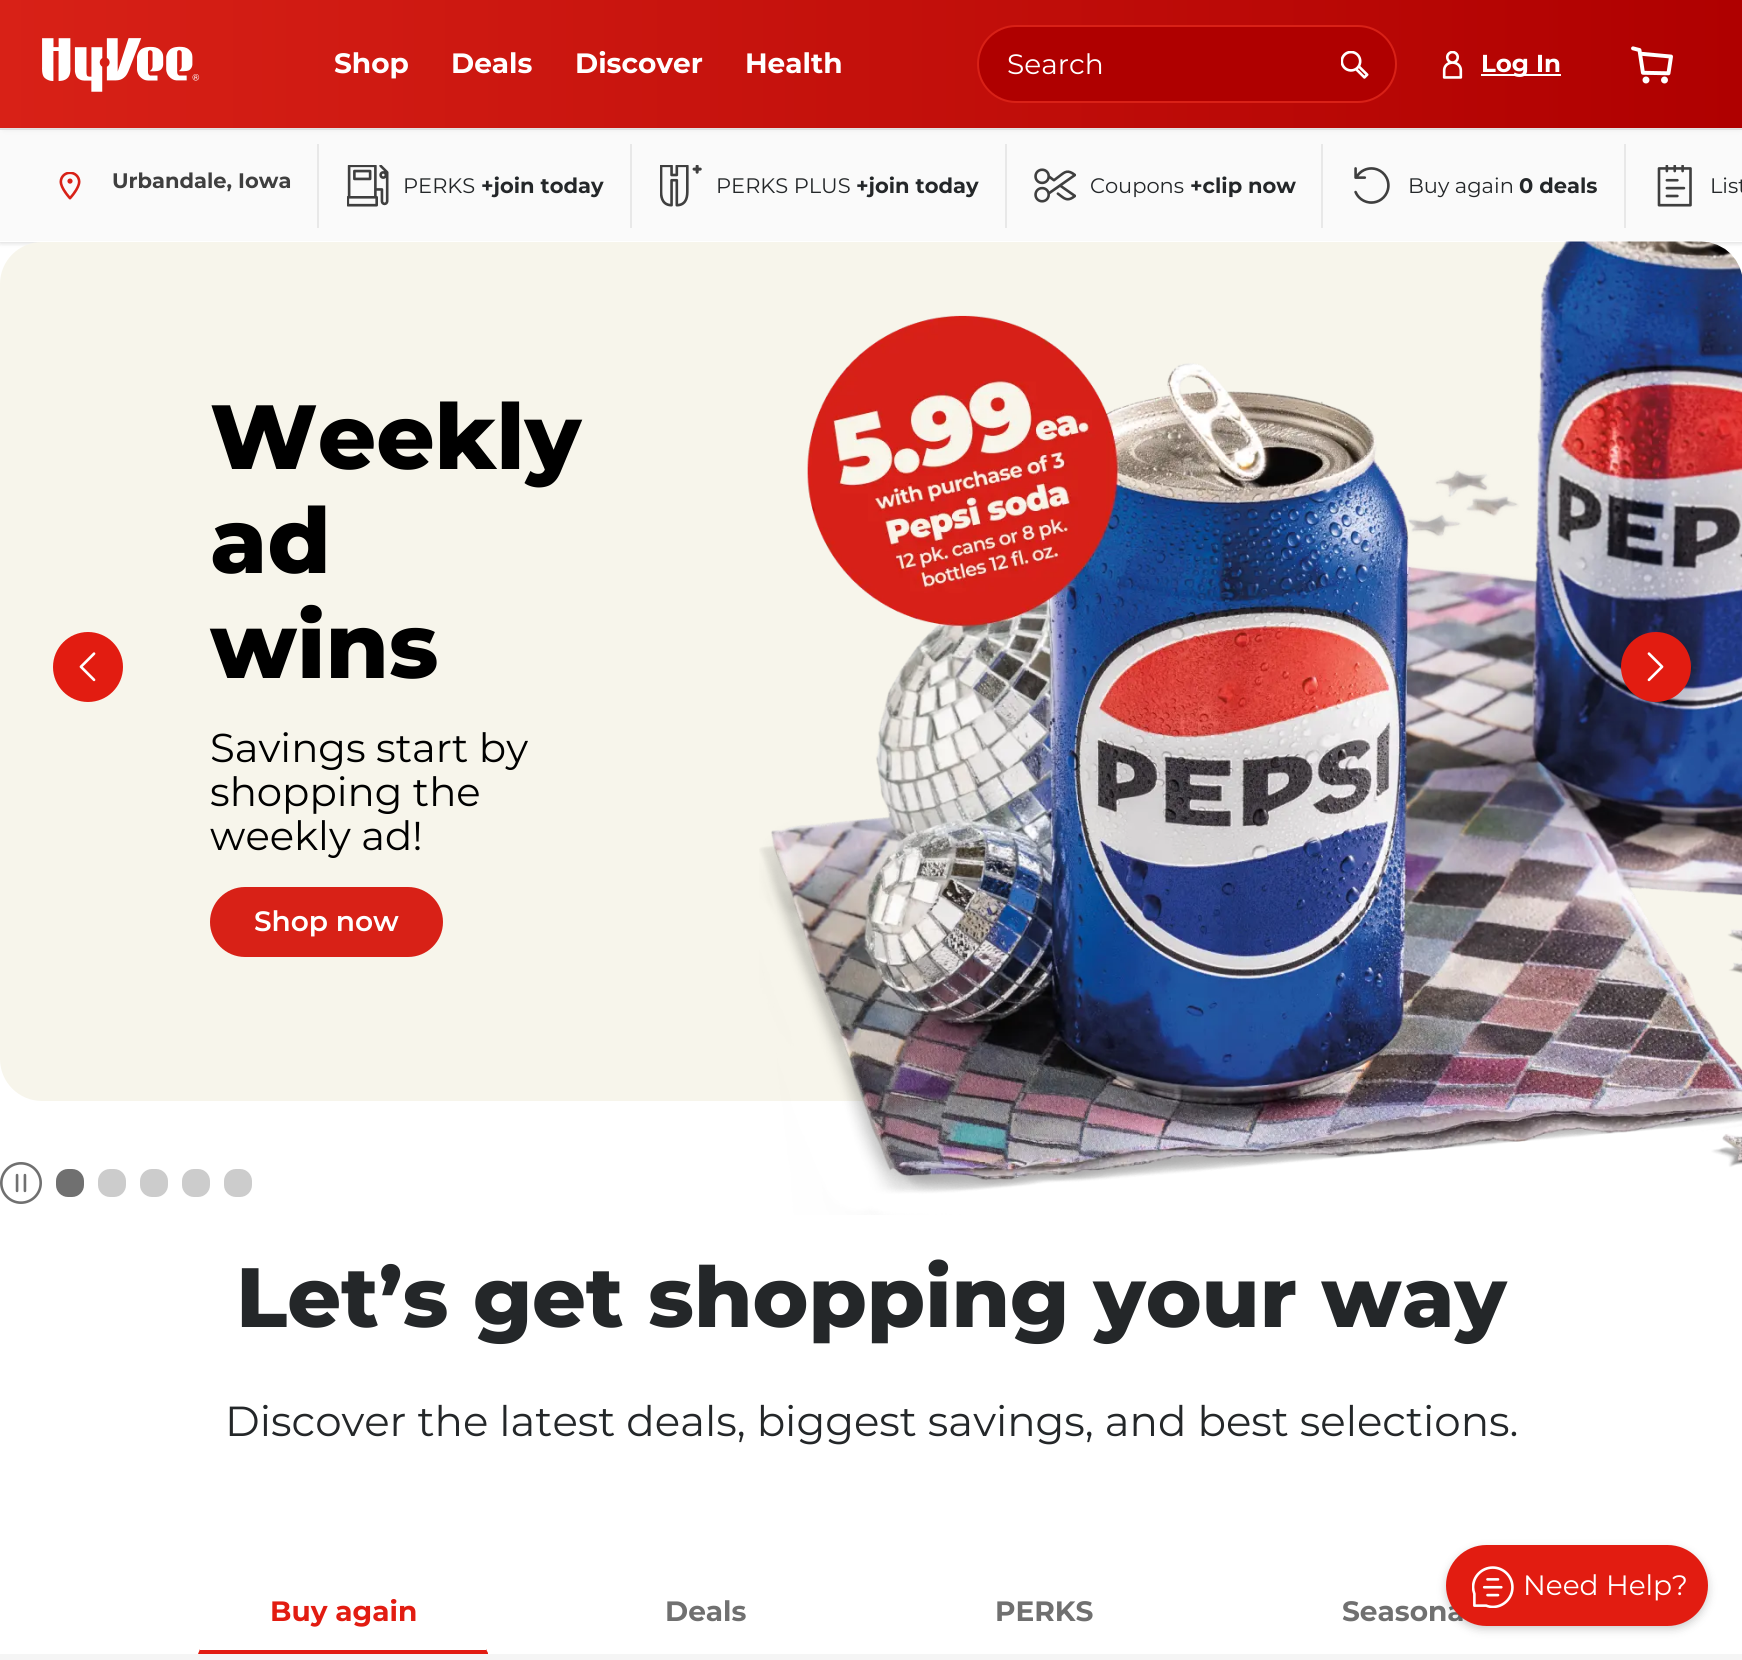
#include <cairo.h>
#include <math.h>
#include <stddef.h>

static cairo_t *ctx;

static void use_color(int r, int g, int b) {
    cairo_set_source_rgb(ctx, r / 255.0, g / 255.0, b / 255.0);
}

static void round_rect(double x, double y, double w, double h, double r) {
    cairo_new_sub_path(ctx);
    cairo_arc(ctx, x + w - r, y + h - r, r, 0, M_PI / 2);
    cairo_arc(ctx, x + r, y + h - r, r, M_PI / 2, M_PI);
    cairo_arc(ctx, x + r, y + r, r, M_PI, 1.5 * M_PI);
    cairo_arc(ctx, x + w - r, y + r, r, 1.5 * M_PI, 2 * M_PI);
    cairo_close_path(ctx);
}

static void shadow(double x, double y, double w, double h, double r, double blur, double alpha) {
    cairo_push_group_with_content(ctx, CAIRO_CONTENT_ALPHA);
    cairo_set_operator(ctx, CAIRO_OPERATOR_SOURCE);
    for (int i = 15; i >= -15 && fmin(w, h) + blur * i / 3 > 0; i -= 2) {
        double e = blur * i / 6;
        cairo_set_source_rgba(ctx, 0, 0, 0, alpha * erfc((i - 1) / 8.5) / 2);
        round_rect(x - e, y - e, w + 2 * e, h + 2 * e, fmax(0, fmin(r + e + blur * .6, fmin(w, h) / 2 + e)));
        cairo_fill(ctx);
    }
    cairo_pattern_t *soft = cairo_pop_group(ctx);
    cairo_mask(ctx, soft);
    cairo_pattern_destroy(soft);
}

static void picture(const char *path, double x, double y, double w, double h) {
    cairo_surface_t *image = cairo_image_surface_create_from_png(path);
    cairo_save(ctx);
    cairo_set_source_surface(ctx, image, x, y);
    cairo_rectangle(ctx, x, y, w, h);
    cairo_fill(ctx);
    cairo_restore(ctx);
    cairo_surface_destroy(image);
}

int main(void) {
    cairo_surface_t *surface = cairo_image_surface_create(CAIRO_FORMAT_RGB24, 1742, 1660);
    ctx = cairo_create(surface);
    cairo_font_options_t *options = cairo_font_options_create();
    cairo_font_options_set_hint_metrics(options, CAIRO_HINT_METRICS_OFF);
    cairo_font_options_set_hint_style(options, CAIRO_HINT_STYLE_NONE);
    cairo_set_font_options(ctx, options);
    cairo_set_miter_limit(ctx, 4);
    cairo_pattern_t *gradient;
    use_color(255, 255, 255);
    cairo_paint(ctx);
    gradient = cairo_pattern_create_linear(0, 64, 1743, 64);
    cairo_pattern_add_color_stop_rgba(gradient, 0, 0.847, 0.129, 0.09, 1);
    cairo_pattern_add_color_stop_rgba(gradient, 1, 0.686, 0, 0, 1);
    cairo_set_source(ctx, gradient);
    cairo_pattern_destroy(gradient);
    cairo_rectangle(ctx, 0, 0, 1742, 128);
    cairo_fill(ctx);
    cairo_save(ctx);
    cairo_set_fill_rule(ctx, CAIRO_FILL_RULE_EVEN_ODD);
    cairo_new_path(ctx);
    cairo_move_to(ctx, 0, 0);
    cairo_line_to(ctx, 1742, 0);
    cairo_line_to(ctx, 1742, 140);
    cairo_line_to(ctx, 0, 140);
    cairo_close_path(ctx);
    cairo_move_to(ctx, 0, 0);
    cairo_line_to(ctx, 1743, 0);
    cairo_line_to(ctx, 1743, 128);
    cairo_line_to(ctx, 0, 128);
    cairo_close_path(ctx);
    cairo_clip(ctx);
    use_color(0, 0, 0);
    shadow(4, 7, 1736, 121, 0, 3.5, 0.2);
    cairo_restore(ctx);
    picture("img1.png", 42, 38, 158, 54);
    cairo_select_font_face(ctx, "Montserrat", CAIRO_FONT_SLANT_NORMAL, CAIRO_FONT_WEIGHT_BOLD);
    cairo_set_font_size(ctx, 28);
    use_color(255, 255, 255);
    cairo_move_to(ctx, 334, 73);
    cairo_show_text(ctx, "Shop");
    cairo_move_to(ctx, 451, 73);
    cairo_show_text(ctx, "Deals");
    cairo_move_to(ctx, 575, 73);
    cairo_show_text(ctx, "Discover");
    cairo_move_to(ctx, 745, 73);
    cairo_show_text(ctx, "Health");
    use_color(175, 0, 0);
    round_rect(978, 26, 418, 76, 38);
    cairo_fill_preserve(ctx);
    use_color(216, 33, 23);
    cairo_stroke(ctx);
    cairo_select_font_face(ctx, "Montserrat", CAIRO_FONT_SLANT_NORMAL, CAIRO_FONT_WEIGHT_NORMAL);
    use_color(255, 255, 255);
    cairo_move_to(ctx, 1007, 74);
    cairo_show_text(ctx, "Search");
    picture("img2.png", 1341, 51, 28, 28);
    picture("img3.png", 1442, 51, 21, 28);
    cairo_rectangle(ctx, 1481, 74, 80, 2);
    cairo_fill(ctx);
    cairo_select_font_face(ctx, "Montserrat", CAIRO_FONT_SLANT_NORMAL, CAIRO_FONT_WEIGHT_BOLD);
    cairo_set_font_size(ctx, 24.5);
    cairo_move_to(ctx, 1481, 72);
    cairo_show_text(ctx, "Log In");
    picture("img4.png", 1631, 46, 42, 38);
    use_color(232, 232, 232);
    cairo_rectangle(ctx, 0, 128, 1742, 2);
    cairo_fill(ctx);
    cairo_save(ctx);
    cairo_set_fill_rule(ctx, CAIRO_FILL_RULE_EVEN_ODD);
    cairo_new_path(ctx);
    cairo_move_to(ctx, 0, 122);
    cairo_line_to(ctx, 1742, 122);
    cairo_line_to(ctx, 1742, 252);
    cairo_line_to(ctx, 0, 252);
    cairo_close_path(ctx);
    cairo_move_to(ctx, 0, 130);
    cairo_line_to(ctx, 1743, 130);
    cairo_line_to(ctx, 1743, 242);
    cairo_line_to(ctx, 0, 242);
    cairo_close_path(ctx);
    cairo_clip(ctx);
    use_color(0, 0, 0);
    shadow(0, 131, 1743, 112, 0, 2.5, 0.15);
    cairo_restore(ctx);
    cairo_set_source_rgba(ctx, 0.961, 0.961, 0.961, 0.5);
    cairo_rectangle(ctx, 0, 130, 1742, 111);
    cairo_fill(ctx);
    picture("img5.png", 59, 172, 22, 28);
    cairo_set_font_size(ctx, 21);
    use_color(63, 63, 63);
    cairo_move_to(ctx, 112, 188);
    cairo_show_text(ctx, "Urbandale, Iowa");
    use_color(232, 232, 232);
    cairo_rectangle(ctx, 317, 144, 2, 84);
    cairo_fill(ctx);
    picture("img6.png", 347, 165, 42, 42);
    cairo_select_font_face(ctx, "Montserrat", CAIRO_FONT_SLANT_NORMAL, CAIRO_FONT_WEIGHT_NORMAL);
    use_color(36, 39, 41);
    cairo_move_to(ctx, 403, 193);
    cairo_show_text(ctx, "PERKS");
    cairo_select_font_face(ctx, "Montserrat", CAIRO_FONT_SLANT_NORMAL, CAIRO_FONT_WEIGHT_BOLD);
    cairo_move_to(ctx, 481, 193);
    cairo_show_text(ctx, "+join today");
    use_color(232, 232, 232);
    cairo_rectangle(ctx, 630, 144, 2, 84);
    cairo_fill(ctx);
    picture("img7.png", 660, 165, 42, 42);
    cairo_select_font_face(ctx, "Montserrat", CAIRO_FONT_SLANT_NORMAL, CAIRO_FONT_WEIGHT_NORMAL);
    use_color(36, 39, 41);
    cairo_move_to(ctx, 716, 193);
    cairo_show_text(ctx, "PERKS PLUS");
    cairo_select_font_face(ctx, "Montserrat", CAIRO_FONT_SLANT_NORMAL, CAIRO_FONT_WEIGHT_BOLD);
    cairo_move_to(ctx, 856, 193);
    cairo_show_text(ctx, "+join today");
    use_color(232, 232, 232);
    cairo_rectangle(ctx, 1005, 144, 2, 84);
    cairo_fill(ctx);
    picture("img8.png", 1034, 168, 42, 35);
    cairo_select_font_face(ctx, "Montserrat", CAIRO_FONT_SLANT_NORMAL, CAIRO_FONT_WEIGHT_NORMAL);
    use_color(36, 39, 41);
    cairo_move_to(ctx, 1090, 193);
    cairo_show_text(ctx, "Coupons");
    cairo_select_font_face(ctx, "Montserrat", CAIRO_FONT_SLANT_NORMAL, CAIRO_FONT_WEIGHT_BOLD);
    cairo_move_to(ctx, 1190, 193);
    cairo_show_text(ctx, "+clip now");
    use_color(232, 232, 232);
    cairo_rectangle(ctx, 1321, 144, 2, 84);
    cairo_fill(ctx);
    picture("img9.png", 1354, 167, 36, 37);
    cairo_select_font_face(ctx, "Montserrat", CAIRO_FONT_SLANT_NORMAL, CAIRO_FONT_WEIGHT_NORMAL);
    use_color(36, 39, 41);
    cairo_move_to(ctx, 1408, 193);
    cairo_show_text(ctx, "Buy again");
    cairo_select_font_face(ctx, "Montserrat", CAIRO_FONT_SLANT_NORMAL, CAIRO_FONT_WEIGHT_BOLD);
    cairo_move_to(ctx, 1519, 193);
    cairo_show_text(ctx, "0 deals");
    use_color(232, 232, 232);
    cairo_rectangle(ctx, 1624, 144, 2, 84);
    cairo_fill(ctx);
    picture("img10.png", 1657, 165, 35, 42);
    cairo_select_font_face(ctx, "Montserrat", CAIRO_FONT_SLANT_NORMAL, CAIRO_FONT_WEIGHT_NORMAL);
    use_color(36, 39, 41);
    cairo_move_to(ctx, 1710, 193);
    cairo_show_text(ctx, "List");
    use_color(247, 245, 235);
    round_rect(0, 242, 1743, 859, 42);
    cairo_fill(ctx);
    use_color(226, 28, 17);
    cairo_arc(ctx, 88, 667, 35, 0, 2 * M_PI);
    cairo_fill(ctx);
    picture("img11.png", 79, 652, 17, 30);
    cairo_select_font_face(ctx, "Montserrat ExtraBold", CAIRO_FONT_SLANT_NORMAL, CAIRO_FONT_WEIGHT_NORMAL);
    cairo_set_font_size(ctx, 91);
    use_color(0, 0, 0);
    cairo_move_to(ctx, 210, 469);
    cairo_show_text(ctx, "Weekly");
    cairo_move_to(ctx, 210, 573);
    cairo_show_text(ctx, "ad");
    cairo_move_to(ctx, 210, 678);
    cairo_show_text(ctx, "wins");
    cairo_select_font_face(ctx, "Montserrat", CAIRO_FONT_SLANT_NORMAL, CAIRO_FONT_WEIGHT_NORMAL);
    cairo_set_font_size(ctx, 40.25);
    cairo_move_to(ctx, 210, 762);
    cairo_show_text(ctx, "Savings start by");
    cairo_move_to(ctx, 210, 806);
    cairo_show_text(ctx, "shopping the");
    cairo_move_to(ctx, 210, 850);
    cairo_show_text(ctx, "weekly ad!");
    use_color(216, 33, 23);
    round_rect(210, 887, 233, 70, 35);
    cairo_fill(ctx);
    cairo_select_font_face(ctx, "Montserrat SemiBold", CAIRO_FONT_SLANT_NORMAL, CAIRO_FONT_WEIGHT_NORMAL);
    cairo_set_font_size(ctx, 28);
    use_color(255, 255, 255);
    cairo_move_to(ctx, 254, 931);
    cairo_show_text(ctx, "Shop now");
    picture("img12.png", 759, 241, 983, 974);
    use_color(226, 28, 17);
    cairo_arc(ctx, 1656, 667, 35, 0, 2 * M_PI);
    cairo_fill(ctx);
    picture("img13.png", 1647, 652, 17, 30);
    picture("img14.png", 0, 1162, 42, 42);
    use_color(112, 112, 112);
    round_rect(56, 1169, 28, 28, 12);
    cairo_fill(ctx);
    use_color(204, 204, 204);
    round_rect(98, 1169, 28, 28, 12);
    cairo_fill(ctx);
    round_rect(140, 1169, 28, 28, 12);
    cairo_fill(ctx);
    round_rect(182, 1169, 28, 28, 12);
    cairo_fill(ctx);
    round_rect(224, 1169, 28, 28, 12);
    cairo_fill(ctx);
    cairo_select_font_face(ctx, "Montserrat ExtraBold", CAIRO_FONT_SLANT_NORMAL, CAIRO_FONT_WEIGHT_NORMAL);
    cairo_set_font_size(ctx, 84);
    use_color(36, 39, 41);
    cairo_move_to(ctx, 236, 1327);
    cairo_show_text(ctx, "Let’s get shopping your way");
    cairo_select_font_face(ctx, "Montserrat", CAIRO_FONT_SLANT_NORMAL, CAIRO_FONT_WEIGHT_NORMAL);
    cairo_set_font_size(ctx, 42);
    cairo_move_to(ctx, 225, 1436);
    cairo_show_text(ctx, "Discover the latest deals, biggest savings, and best selections.");
    use_color(226, 28, 17);
    cairo_new_path(ctx);
    cairo_move_to(ctx, 198, 1654);
    cairo_line_to(ctx, 200, 1649);
    cairo_line_to(ctx, 200, 1650);
    cairo_line_to(ctx, 486, 1650);
    cairo_line_to(ctx, 486, 1649);
    cairo_line_to(ctx, 488, 1653);
    cairo_line_to(ctx, 488, 1654);
    cairo_close_path(ctx);
    cairo_fill(ctx);
    cairo_select_font_face(ctx, "Montserrat", CAIRO_FONT_SLANT_NORMAL, CAIRO_FONT_WEIGHT_BOLD);
    cairo_set_font_size(ctx, 28);
    cairo_move_to(ctx, 270, 1621);
    cairo_show_text(ctx, "Buy again");
    use_color(112, 112, 112);
    cairo_move_to(ctx, 665, 1621);
    cairo_show_text(ctx, "Deals");
    cairo_move_to(ctx, 995, 1621);
    cairo_show_text(ctx, "PERKS");
    cairo_move_to(ctx, 1342, 1621);
    cairo_show_text(ctx, "Seasona");
    gradient = cairo_pattern_create_linear(871, 1654, 872, 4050);
    cairo_pattern_add_color_stop_rgba(gradient, 0, 0.961, 0.961, 0.961, 1);
    cairo_pattern_add_color_stop_rgba(gradient, 1, 1, 1, 1, 1);
    cairo_set_source(ctx, gradient);
    cairo_pattern_destroy(gradient);
    cairo_rectangle(ctx, 0, 1654, 1742, 6);
    cairo_fill(ctx);
    use_color(0, 0, 0);
    shadow(1446, 1549, 262, 80, 40, 4.5, 0.2);
    use_color(226, 28, 17);
    round_rect(1446, 1545, 262, 81, 40.5);
    cairo_fill(ctx);
    picture("img15.png", 1472, 1566, 42, 42);
    cairo_select_font_face(ctx, "Montserrat", CAIRO_FONT_SLANT_NORMAL, CAIRO_FONT_WEIGHT_NORMAL);
    use_color(255, 255, 255);
    cairo_move_to(ctx, 1523, 1595);
    cairo_show_text(ctx, "Need Help?");
    cairo_surface_write_to_png(surface, "result.png");
    cairo_font_options_destroy(options);
    cairo_destroy(ctx);
    cairo_surface_destroy(surface);
    return 0;
}
